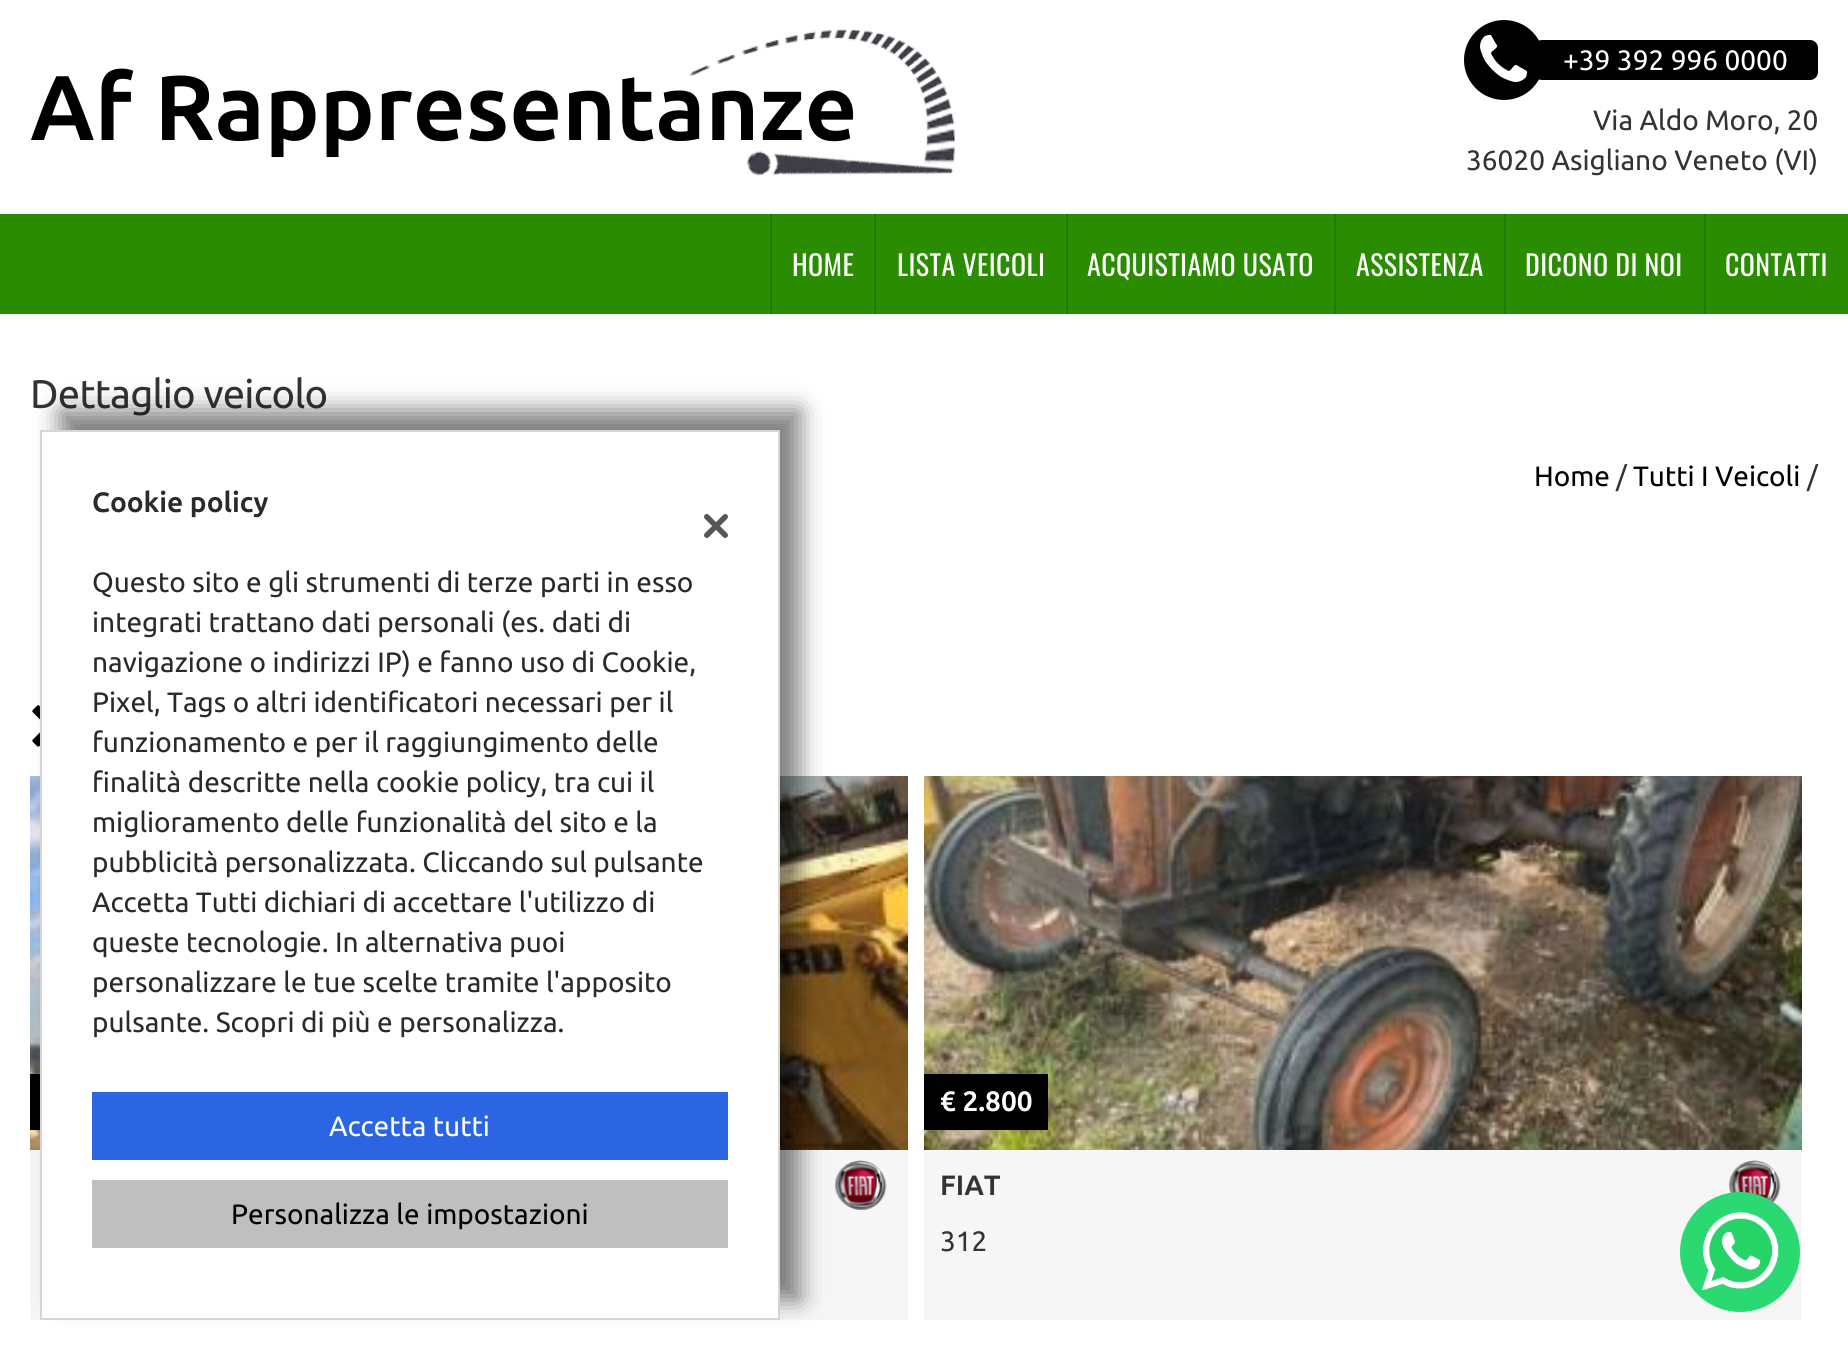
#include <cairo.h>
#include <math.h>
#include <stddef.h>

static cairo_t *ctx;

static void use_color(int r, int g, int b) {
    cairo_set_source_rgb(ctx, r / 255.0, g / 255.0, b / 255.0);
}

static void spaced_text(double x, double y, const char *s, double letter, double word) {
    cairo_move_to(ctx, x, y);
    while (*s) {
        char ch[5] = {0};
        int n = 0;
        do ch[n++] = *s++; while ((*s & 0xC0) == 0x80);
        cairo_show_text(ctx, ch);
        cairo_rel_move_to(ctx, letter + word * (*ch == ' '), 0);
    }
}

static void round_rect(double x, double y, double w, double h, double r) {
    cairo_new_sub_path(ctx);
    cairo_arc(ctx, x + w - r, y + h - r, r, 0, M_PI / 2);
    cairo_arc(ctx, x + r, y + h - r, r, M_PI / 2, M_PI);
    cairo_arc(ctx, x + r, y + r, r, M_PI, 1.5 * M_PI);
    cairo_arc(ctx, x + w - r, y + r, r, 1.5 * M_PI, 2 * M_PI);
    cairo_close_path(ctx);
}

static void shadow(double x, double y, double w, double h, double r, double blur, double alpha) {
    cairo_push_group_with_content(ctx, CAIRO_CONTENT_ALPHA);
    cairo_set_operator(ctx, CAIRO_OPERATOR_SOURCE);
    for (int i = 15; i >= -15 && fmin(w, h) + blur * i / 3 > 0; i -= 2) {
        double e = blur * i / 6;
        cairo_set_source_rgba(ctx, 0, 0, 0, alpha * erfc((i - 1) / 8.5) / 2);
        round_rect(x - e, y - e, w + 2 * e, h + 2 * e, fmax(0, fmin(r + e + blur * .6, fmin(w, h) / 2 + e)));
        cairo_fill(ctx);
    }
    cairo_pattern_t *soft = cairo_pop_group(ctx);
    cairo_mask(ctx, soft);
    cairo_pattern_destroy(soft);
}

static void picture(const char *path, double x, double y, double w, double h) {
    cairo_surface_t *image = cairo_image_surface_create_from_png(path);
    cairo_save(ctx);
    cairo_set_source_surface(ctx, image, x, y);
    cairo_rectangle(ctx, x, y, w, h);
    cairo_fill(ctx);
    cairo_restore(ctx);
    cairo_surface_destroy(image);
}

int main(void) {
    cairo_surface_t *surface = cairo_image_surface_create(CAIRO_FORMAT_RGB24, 1848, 1360);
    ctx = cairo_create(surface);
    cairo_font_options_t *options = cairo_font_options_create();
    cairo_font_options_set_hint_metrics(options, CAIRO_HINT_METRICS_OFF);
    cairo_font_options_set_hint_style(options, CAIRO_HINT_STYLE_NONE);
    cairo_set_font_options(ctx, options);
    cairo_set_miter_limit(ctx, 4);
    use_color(255, 255, 255);
    cairo_paint(ctx);
    picture("img1.png", 689, 29, 267, 147);
    cairo_select_font_face(ctx, "Ubuntu", CAIRO_FONT_SLANT_NORMAL, CAIRO_FONT_WEIGHT_BOLD);
    cairo_set_font_size(ctx, 92);
    use_color(0, 0, 0);
    cairo_move_to(ctx, 30, 140);
    cairo_show_text(ctx, "Af Rappresentanze");
    cairo_new_path(ctx);
    cairo_arc(ctx, 1504, 60, 40, 0, 2 * M_PI);
    cairo_fill(ctx);
    picture("img2.png", 1480, 34, 48, 48);
    round_rect(1534, 40, 284, 40, 8);
    cairo_fill(ctx);
    cairo_select_font_face(ctx, "Ubuntu", CAIRO_FONT_SLANT_NORMAL, CAIRO_FONT_WEIGHT_NORMAL);
    cairo_set_font_size(ctx, 28);
    use_color(255, 255, 255);
    cairo_move_to(ctx, 1563, 70);
    cairo_show_text(ctx, "+39 392 996 0000");
    use_color(51, 51, 51);
    cairo_move_to(ctx, 1593, 130);
    cairo_show_text(ctx, "Via Aldo Moro, 20");
    cairo_move_to(ctx, 1466, 170);
    cairo_show_text(ctx, "36020 Asigliano Veneto (VI)");
    use_color(42, 140, 0);
    cairo_rectangle(ctx, 0, 214, 1848, 100);
    cairo_fill(ctx);
    use_color(36, 120, 0);
    cairo_rectangle(ctx, 770, 214, 2, 100);
    cairo_fill(ctx);
    cairo_select_font_face(ctx, "Oswald", CAIRO_FONT_SLANT_NORMAL, CAIRO_FONT_WEIGHT_NORMAL);
    use_color(255, 255, 255);
    spaced_text(792, 276, "HOME", 0.4, 0);
    use_color(36, 120, 0);
    cairo_rectangle(ctx, 874, 214, 2, 100);
    cairo_fill(ctx);
    use_color(255, 255, 255);
    spaced_text(897, 276, "LISTA VEICOLI", 0.4, 0);
    use_color(36, 120, 0);
    cairo_rectangle(ctx, 1066, 214, 2, 100);
    cairo_fill(ctx);
    use_color(255, 255, 255);
    spaced_text(1087, 276, "ACQUISTIAMO USATO", 0.4, 0);
    use_color(36, 120, 0);
    cairo_rectangle(ctx, 1334, 214, 2, 100);
    cairo_fill(ctx);
    use_color(255, 255, 255);
    spaced_text(1356, 276, "ASSISTENZA", 0.4, 0);
    use_color(36, 120, 0);
    cairo_rectangle(ctx, 1504, 214, 2, 100);
    cairo_fill(ctx);
    use_color(255, 255, 255);
    spaced_text(1525, 276, "DICONO DI NOI", 0.4, 0);
    use_color(36, 120, 0);
    cairo_rectangle(ctx, 1704, 214, 2, 100);
    cairo_fill(ctx);
    use_color(255, 255, 255);
    spaced_text(1725, 276, "CONTATTI", 0.4, 0);
    cairo_select_font_face(ctx, "Ubuntu", CAIRO_FONT_SLANT_NORMAL, CAIRO_FONT_WEIGHT_NORMAL);
    cairo_set_font_size(ctx, 40);
    use_color(51, 51, 51);
    spaced_text(30, 408, "Dettaglio veicolo", -0.75, 0);
    cairo_set_font_size(ctx, 28);
    use_color(0, 0, 0);
    cairo_move_to(ctx, 1534, 486);
    cairo_show_text(ctx, "Home");
    use_color(51, 51, 51);
    cairo_move_to(ctx, 1616, 486);
    cairo_show_text(ctx, "/");
    use_color(0, 0, 0);
    cairo_move_to(ctx, 1633, 486);
    cairo_show_text(ctx, "Tutti I Veicoli");
    use_color(51, 51, 51);
    cairo_move_to(ctx, 1807, 486);
    cairo_show_text(ctx, "/");
    picture("img3.png", 32, 705, 8, 42);
    use_color(246, 246, 246);
    cairo_rectangle(ctx, 30, 1150, 878, 170);
    cairo_fill(ctx);
    picture("img4.png", 30, 776, 878, 374);
    use_color(0, 0, 0);
    cairo_rectangle(ctx, 30, 1074, 10, 56);
    cairo_fill(ctx);
    picture("img5.png", 834, 1160, 53, 50);
    use_color(246, 246, 246);
    cairo_rectangle(ctx, 924, 1150, 878, 170);
    cairo_fill(ctx);
    picture("img6.png", 924, 776, 878, 374);
    use_color(0, 0, 0);
    cairo_rectangle(ctx, 924, 1074, 124, 56);
    cairo_fill(ctx);
    cairo_select_font_face(ctx, "Ubuntu", CAIRO_FONT_SLANT_NORMAL, CAIRO_FONT_WEIGHT_BOLD);
    use_color(255, 255, 255);
    cairo_move_to(ctx, 940, 1111);
    cairo_show_text(ctx, "€ 2.800");
    use_color(51, 51, 51);
    cairo_move_to(ctx, 940, 1195);
    cairo_show_text(ctx, "FIAT");
    picture("img7.png", 1728, 1160, 53, 43);
    cairo_select_font_face(ctx, "Ubuntu", CAIRO_FONT_SLANT_NORMAL, CAIRO_FONT_WEIGHT_NORMAL);
    cairo_move_to(ctx, 940, 1251);
    cairo_show_text(ctx, "312");
    use_color(0, 0, 0);
    shadow(60, 410, 740, 890, 0, 12, 0.5);
    use_color(255, 255, 255);
    cairo_rectangle(ctx, 41, 431, 738, 888);
    cairo_fill_preserve(ctx);
    use_color(214, 214, 214);
    cairo_stroke(ctx);
    cairo_select_font_face(ctx, "Ubuntu", CAIRO_FONT_SLANT_NORMAL, CAIRO_FONT_WEIGHT_BOLD);
    use_color(43, 41, 41);
    cairo_move_to(ctx, 92, 512);
    cairo_show_text(ctx, "Cookie policy");
    cairo_select_font_face(ctx, "Ubuntu", CAIRO_FONT_SLANT_NORMAL, CAIRO_FONT_WEIGHT_NORMAL);
    cairo_move_to(ctx, 92, 592);
    cairo_show_text(ctx, "Questo sito e gli strumenti di terze parti in esso");
    cairo_move_to(ctx, 92, 632);
    cairo_show_text(ctx, "integrati trattano dati personali (es. dati di");
    cairo_move_to(ctx, 92, 672);
    cairo_show_text(ctx, "navigazione o indirizzi IP) e fanno uso di Cookie,");
    cairo_move_to(ctx, 92, 712);
    cairo_show_text(ctx, "Pixel, Tags o altri identificatori necessari per il");
    cairo_move_to(ctx, 92, 752);
    cairo_show_text(ctx, "funzionamento e per il raggiungimento delle");
    cairo_move_to(ctx, 92, 792);
    cairo_show_text(ctx, "finalità descritte nella cookie policy, tra cui il");
    cairo_move_to(ctx, 92, 832);
    cairo_show_text(ctx, "miglioramento delle funzionalità del sito e la");
    cairo_move_to(ctx, 92, 872);
    cairo_show_text(ctx, "pubblicità personalizzata. Cliccando sul pulsante");
    cairo_move_to(ctx, 92, 912);
    cairo_show_text(ctx, "Accetta Tutti dichiari di accettare l'utilizzo di");
    cairo_move_to(ctx, 92, 952);
    cairo_show_text(ctx, "queste tecnologie. In alternativa puoi");
    cairo_move_to(ctx, 92, 992);
    cairo_show_text(ctx, "personalizzare le tue scelte tramite l'apposito");
    cairo_move_to(ctx, 92, 1032);
    cairo_show_text(ctx, "pulsante. Scopri di più e personalizza.");
    picture("img8.png", 704, 514, 24, 24);
    use_color(44, 101, 225);
    cairo_rectangle(ctx, 92, 1092, 636, 68);
    cairo_fill(ctx);
    use_color(255, 255, 255);
    cairo_move_to(ctx, 329, 1136);
    cairo_show_text(ctx, "Accetta tutti");
    use_color(191, 191, 191);
    cairo_rectangle(ctx, 92, 1180, 636, 68);
    cairo_fill(ctx);
    use_color(0, 0, 0);
    cairo_move_to(ctx, 231, 1224);
    cairo_show_text(ctx, "Personalizza le impostazioni");
    use_color(42, 217, 113);
    cairo_new_path(ctx);
    cairo_arc(ctx, 1740, 1252, 60, 0, 2 * M_PI);
    cairo_fill(ctx);
    picture("img9.png", 1701, 1212, 78, 78);
    cairo_surface_write_to_png(surface, "result.png");
    cairo_font_options_destroy(options);
    cairo_destroy(ctx);
    cairo_surface_destroy(surface);
    return 0;
}
